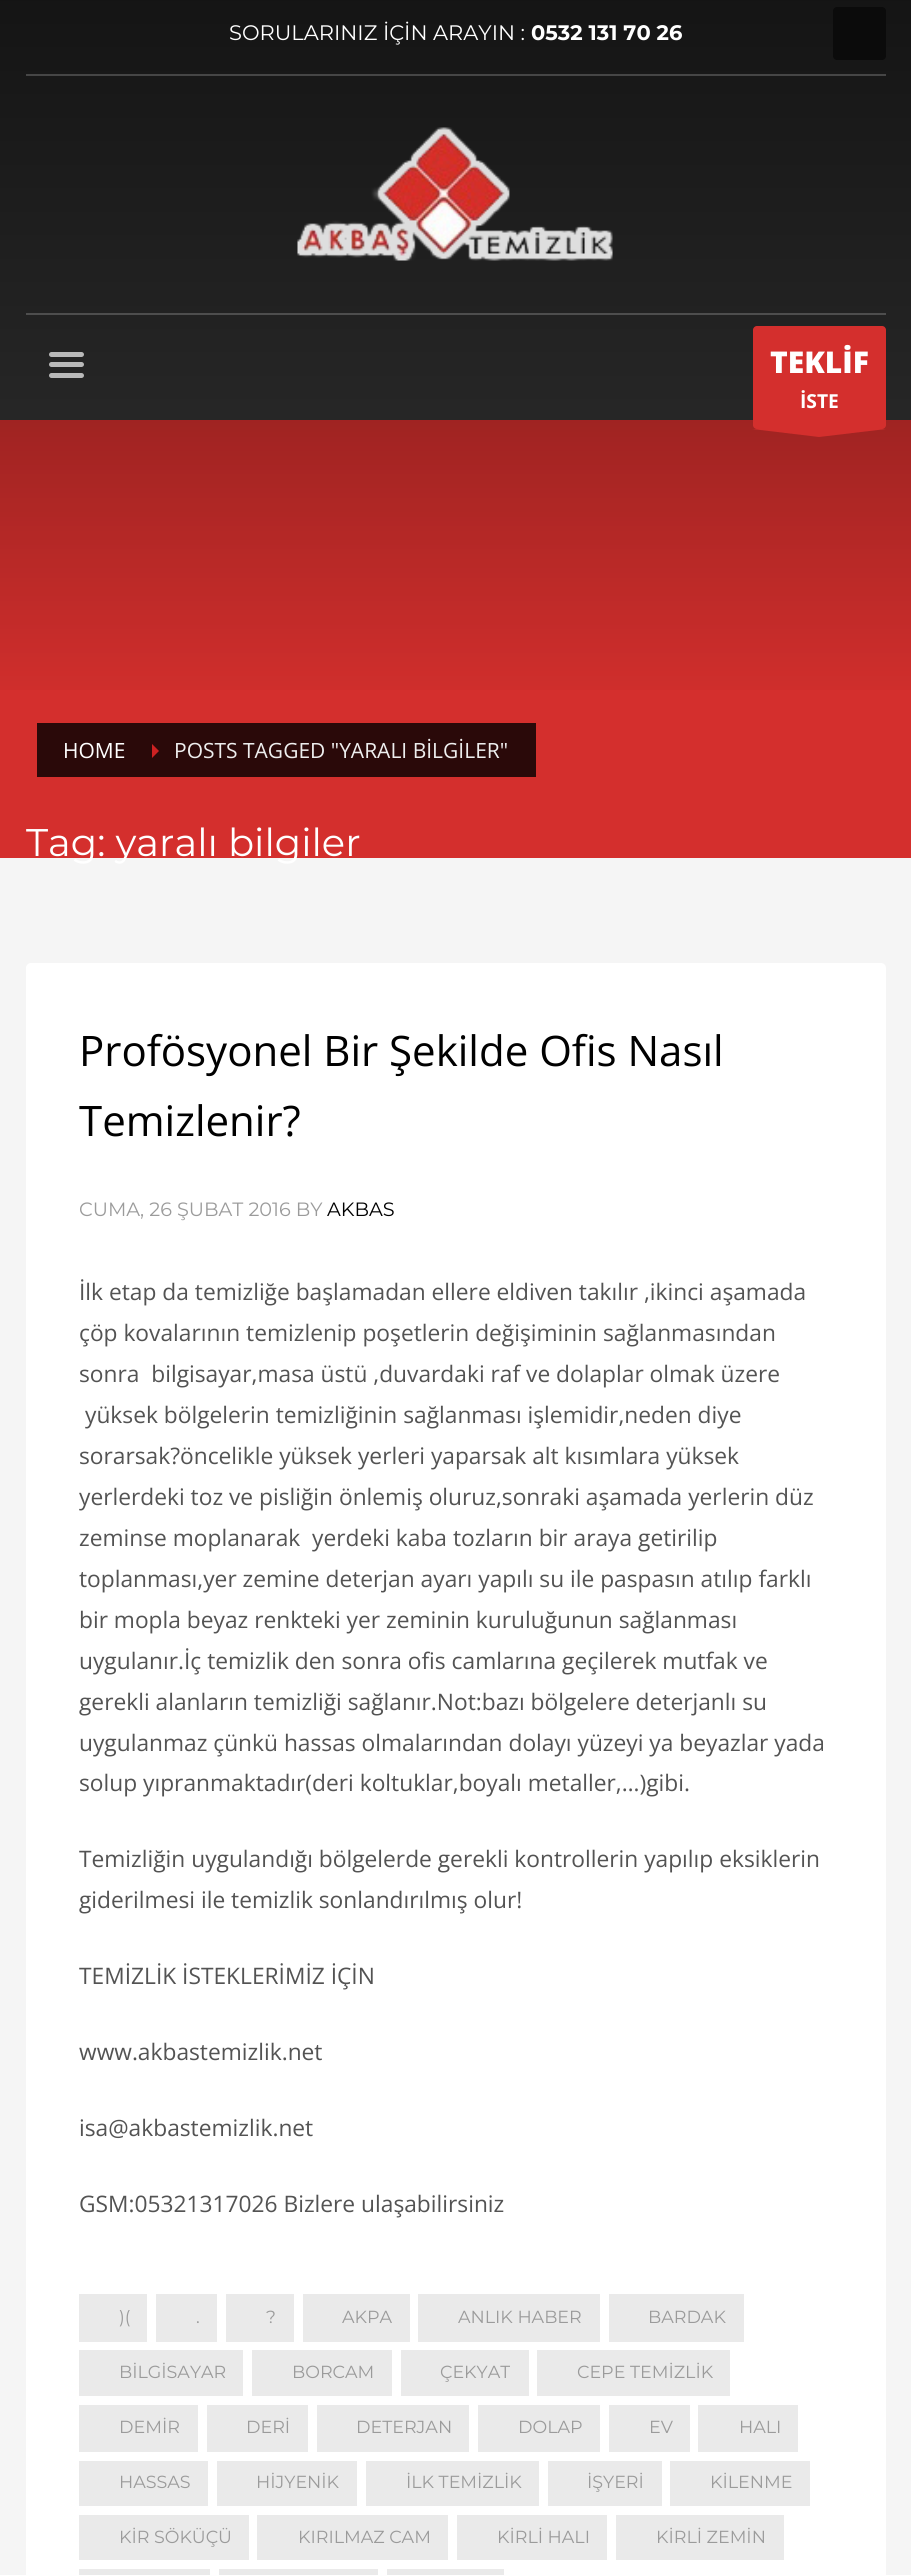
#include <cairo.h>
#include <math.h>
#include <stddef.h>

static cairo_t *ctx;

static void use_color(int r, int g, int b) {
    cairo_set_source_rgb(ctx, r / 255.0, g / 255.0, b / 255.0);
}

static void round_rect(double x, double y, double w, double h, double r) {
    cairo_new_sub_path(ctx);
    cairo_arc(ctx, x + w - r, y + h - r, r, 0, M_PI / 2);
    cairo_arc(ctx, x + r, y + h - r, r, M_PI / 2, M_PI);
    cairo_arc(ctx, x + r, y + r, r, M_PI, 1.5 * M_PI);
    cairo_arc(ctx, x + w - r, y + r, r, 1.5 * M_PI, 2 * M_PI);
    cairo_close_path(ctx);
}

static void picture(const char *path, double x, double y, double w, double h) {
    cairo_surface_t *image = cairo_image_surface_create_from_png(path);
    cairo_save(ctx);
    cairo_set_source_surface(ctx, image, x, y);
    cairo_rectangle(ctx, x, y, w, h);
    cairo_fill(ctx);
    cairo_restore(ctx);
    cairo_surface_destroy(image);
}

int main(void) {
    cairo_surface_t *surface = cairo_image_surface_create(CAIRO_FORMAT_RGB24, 911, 2575);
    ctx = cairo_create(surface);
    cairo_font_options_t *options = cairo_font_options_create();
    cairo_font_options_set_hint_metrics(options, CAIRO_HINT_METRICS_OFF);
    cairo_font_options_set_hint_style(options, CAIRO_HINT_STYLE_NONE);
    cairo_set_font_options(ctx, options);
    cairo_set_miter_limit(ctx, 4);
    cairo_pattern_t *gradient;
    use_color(245, 245, 245);
    cairo_paint(ctx);
    use_color(51, 51, 51);
    cairo_rectangle(ctx, 0, 0, 911, 420);
    cairo_fill(ctx);
    use_color(212, 47, 45);
    cairo_rectangle(ctx, 0, 420, 911, 438);
    cairo_fill(ctx);
    gradient = cairo_pattern_create_linear(456, -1.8, 456, 716);
    cairo_pattern_add_color_stop_rgba(gradient, 0, 0, 0, 0, 0.6);
    cairo_pattern_add_color_stop_rgba(gradient, 1, 0, 0, 0, 0);
    cairo_set_source(ctx, gradient);
    cairo_pattern_destroy(gradient);
    cairo_rectangle(ctx, 0, 0, 911, 690);
    cairo_fill(ctx);
    cairo_select_font_face(ctx, "Montserrat", CAIRO_FONT_SLANT_NORMAL, CAIRO_FONT_WEIGHT_NORMAL);
    cairo_set_font_size(ctx, 21);
    use_color(255, 255, 255);
    cairo_move_to(ctx, 229, 40);
    cairo_show_text(ctx, "SORULARINIZ İÇİN ARAYIN :");
    cairo_select_font_face(ctx, "Montserrat", CAIRO_FONT_SLANT_NORMAL, CAIRO_FONT_WEIGHT_BOLD);
    cairo_move_to(ctx, 531, 40);
    cairo_show_text(ctx, "0532 131 70 26");
    use_color(11, 11, 11);
    round_rect(833, 7, 53, 53, 4);
    cairo_fill(ctx);
    use_color(70, 70, 70);
    cairo_rectangle(ctx, 26, 74, 860, 2);
    cairo_fill(ctx);
    picture("img1.png", 297, 127, 316, 134);
    use_color(78, 78, 78);
    cairo_rectangle(ctx, 26, 313, 860, 2);
    cairo_fill(ctx);
    use_color(185, 185, 185);
    round_rect(49, 352, 35, 5, 2.5);
    cairo_fill(ctx);
    round_rect(49, 362, 35, 5, 2.5);
    cairo_fill(ctx);
    round_rect(49, 373, 35, 5, 2.5);
    cairo_fill(ctx);
    use_color(212, 47, 45);
    round_rect(753, 326, 133, 103, 4);
    cairo_fill(ctx);
    cairo_select_font_face(ctx, "Open Sans ExtraBold", CAIRO_FONT_SLANT_NORMAL, CAIRO_FONT_WEIGHT_NORMAL);
    cairo_set_font_size(ctx, 30);
    use_color(255, 255, 255);
    cairo_move_to(ctx, 770, 373);
    cairo_show_text(ctx, "TEKLİF");
    cairo_select_font_face(ctx, "Open Sans", CAIRO_FONT_SLANT_NORMAL, CAIRO_FONT_WEIGHT_BOLD);
    cairo_set_font_size(ctx, 19.25);
    cairo_move_to(ctx, 800, 408);
    cairo_show_text(ctx, "İSTE");
    use_color(212, 47, 45);
    cairo_set_fill_rule(ctx, CAIRO_FILL_RULE_EVEN_ODD);
    cairo_new_path(ctx);
    cairo_move_to(ctx, 886, 429);
    cairo_line_to(ctx, 819, 437);
    cairo_line_to(ctx, 752, 429);
    cairo_close_path(ctx);
    cairo_fill(ctx);
    use_color(42, 9, 9);
    cairo_rectangle(ctx, 37, 723, 499, 54);
    cairo_fill(ctx);
    cairo_select_font_face(ctx, "Open Sans", CAIRO_FONT_SLANT_NORMAL, CAIRO_FONT_WEIGHT_NORMAL);
    cairo_set_font_size(ctx, 21);
    use_color(255, 255, 255);
    cairo_move_to(ctx, 63, 758);
    cairo_show_text(ctx, "HOME");
    use_color(205, 33, 34);
    cairo_set_fill_rule(ctx, CAIRO_FILL_RULE_WINDING);
    cairo_new_path(ctx);
    cairo_move_to(ctx, 152, 758);
    cairo_line_to(ctx, 152, 744);
    cairo_line_to(ctx, 159, 751);
    cairo_close_path(ctx);
    cairo_fill(ctx);
    use_color(238, 238, 238);
    cairo_move_to(ctx, 174, 758);
    cairo_show_text(ctx, "POSTS TAGGED \"YARALI BİLGİLER\"");
    cairo_select_font_face(ctx, "Montserrat", CAIRO_FONT_SLANT_NORMAL, CAIRO_FONT_WEIGHT_NORMAL);
    cairo_set_font_size(ctx, 38.5);
    use_color(255, 255, 255);
    cairo_move_to(ctx, 26, 856);
    cairo_show_text(ctx, "Tag: yaralı bilgiler");
    round_rect(26, 963, 860, 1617, 5);
    cairo_fill(ctx);
    cairo_select_font_face(ctx, "Open Sans", CAIRO_FONT_SLANT_NORMAL, CAIRO_FONT_WEIGHT_NORMAL);
    cairo_set_font_size(ctx, 42);
    use_color(0, 0, 0);
    cairo_move_to(ctx, 79, 1066);
    cairo_show_text(ctx, "Profösyonel Bir Şekilde Ofis Nasıl");
    cairo_move_to(ctx, 79, 1136);
    cairo_show_text(ctx, "Temizlenir?");
    cairo_select_font_face(ctx, "Montserrat", CAIRO_FONT_SLANT_NORMAL, CAIRO_FONT_WEIGHT_NORMAL);
    cairo_set_font_size(ctx, 19.25);
    use_color(155, 155, 155);
    cairo_move_to(ctx, 79, 1216);
    cairo_show_text(ctx, "CUMA, 26 ŞUBAT 2016 BY");
    use_color(0, 0, 0);
    cairo_move_to(ctx, 327, 1216);
    cairo_show_text(ctx, "AKBAS");
    cairo_select_font_face(ctx, "Open Sans", CAIRO_FONT_SLANT_NORMAL, CAIRO_FONT_WEIGHT_NORMAL);
    cairo_set_font_size(ctx, 22.75);
    use_color(83, 83, 83);
    cairo_move_to(ctx, 79, 1300);
    cairo_show_text(ctx, "İlk etap da temizliğe başlamadan ellere eldiven takılır ,ikinci aşamada");
    cairo_move_to(ctx, 79, 1341);
    cairo_show_text(ctx, "çöp kovalarının temizlenip poşetlerin değişiminin sağlanmasından");
    cairo_move_to(ctx, 79, 1382);
    cairo_show_text(ctx, "sonra  bilgisayar,masa üstü ,duvardaki raf ve dolaplar olmak üzere");
    cairo_move_to(ctx, 85, 1423);
    cairo_show_text(ctx, "yüksek bölgelerin temizliğinin sağlanması işlemidir,neden diye");
    cairo_move_to(ctx, 79, 1464);
    cairo_show_text(ctx, "sorarsak?öncelikle yüksek yerleri yaparsak alt kısımlara yüksek");
    cairo_move_to(ctx, 79, 1505);
    cairo_show_text(ctx, "yerlerdeki toz ve pisliğin önlemiş oluruz,sonraki aşamada yerlerin düz");
    cairo_move_to(ctx, 79, 1546);
    cairo_show_text(ctx, "zeminse moplanarak  yerdeki kaba tozların bir araya getirilip");
    cairo_move_to(ctx, 79, 1587);
    cairo_show_text(ctx, "toplanması,yer zemine deterjan ayarı yapılı su ile paspasın atılıp farklı");
    cairo_move_to(ctx, 79, 1628);
    cairo_show_text(ctx, "bir mopla beyaz renkteki yer zeminin kuruluğunun sağlanması");
    cairo_move_to(ctx, 79, 1669);
    cairo_show_text(ctx, "uygulanır.İç temizlik den sonra ofis camlarına geçilerek mutfak ve");
    cairo_move_to(ctx, 79, 1710);
    cairo_show_text(ctx, "gerekli alanların temizliği sağlanır.Not:bazı bölgelere deterjanlı su");
    cairo_move_to(ctx, 79, 1751);
    cairo_show_text(ctx, "uygulanmaz çünkü hassas olmalarından dolayı yüzeyi ya beyazlar yada");
    cairo_move_to(ctx, 79, 1791);
    cairo_show_text(ctx, "solup yıpranmaktadır(deri koltuklar,boyalı metaller,…)gibi.");
    cairo_move_to(ctx, 79, 1867);
    cairo_show_text(ctx, "Temizliğin uygulandığı bölgelerde gerekli kontrollerin yapılıp eksiklerin");
    cairo_move_to(ctx, 79, 1908);
    cairo_show_text(ctx, "giderilmesi ile temizlik sonlandırılmış olur!");
    cairo_move_to(ctx, 79, 1984);
    cairo_show_text(ctx, "TEMİZLİK İSTEKLERİMİZ İÇİN");
    cairo_move_to(ctx, 79, 2060);
    cairo_show_text(ctx, "www.akbastemizlik.net");
    cairo_move_to(ctx, 79, 2136);
    cairo_show_text(ctx, "isa@akbastemizlik.net");
    cairo_move_to(ctx, 79, 2212);
    cairo_show_text(ctx, "GSM:05321317026 Bizlere ulaşabilirsiniz");
    use_color(234, 234, 234);
    cairo_rectangle(ctx, 79, 2294, 68, 48);
    cairo_fill(ctx);
    cairo_select_font_face(ctx, "Montserrat", CAIRO_FONT_SLANT_NORMAL, CAIRO_FONT_WEIGHT_NORMAL);
    cairo_set_font_size(ctx, 17.5);
    use_color(155, 155, 155);
    cairo_move_to(ctx, 119, 2323);
    cairo_show_text(ctx, ")(");
    use_color(234, 234, 234);
    cairo_rectangle(ctx, 156, 2294, 61, 48);
    cairo_fill(ctx);
    use_color(155, 155, 155);
    cairo_move_to(ctx, 196, 2323);
    cairo_show_text(ctx, ".");
    use_color(234, 234, 234);
    cairo_rectangle(ctx, 226, 2294, 68, 48);
    cairo_fill(ctx);
    use_color(155, 155, 155);
    cairo_move_to(ctx, 266, 2323);
    cairo_show_text(ctx, "?");
    use_color(234, 234, 234);
    cairo_rectangle(ctx, 303, 2294, 107, 48);
    cairo_fill(ctx);
    use_color(155, 155, 155);
    cairo_move_to(ctx, 342, 2323);
    cairo_show_text(ctx, "AKPA");
    use_color(234, 234, 234);
    cairo_rectangle(ctx, 418, 2294, 182, 48);
    cairo_fill(ctx);
    use_color(155, 155, 155);
    cairo_move_to(ctx, 458, 2323);
    cairo_show_text(ctx, "ANLIK HABER");
    use_color(234, 234, 234);
    cairo_rectangle(ctx, 609, 2294, 135, 48);
    cairo_fill(ctx);
    use_color(155, 155, 155);
    cairo_move_to(ctx, 648, 2323);
    cairo_show_text(ctx, "BARDAK");
    use_color(234, 234, 234);
    cairo_rectangle(ctx, 79, 2350, 164, 46);
    cairo_fill(ctx);
    use_color(155, 155, 155);
    cairo_move_to(ctx, 119, 2378);
    cairo_show_text(ctx, "BİLGİSAYAR");
    use_color(234, 234, 234);
    cairo_rectangle(ctx, 252, 2350, 140, 46);
    cairo_fill(ctx);
    use_color(155, 155, 155);
    cairo_move_to(ctx, 292, 2378);
    cairo_show_text(ctx, "BORCAM");
    use_color(234, 234, 234);
    cairo_rectangle(ctx, 401, 2350, 128, 46);
    cairo_fill(ctx);
    use_color(155, 155, 155);
    cairo_move_to(ctx, 440, 2378);
    cairo_show_text(ctx, "ÇEKYAT");
    use_color(234, 234, 234);
    cairo_rectangle(ctx, 537, 2350, 193, 46);
    cairo_fill(ctx);
    use_color(155, 155, 155);
    cairo_move_to(ctx, 577, 2378);
    cairo_show_text(ctx, "CEPE TEMİZLİK");
    use_color(234, 234, 234);
    cairo_rectangle(ctx, 79, 2405, 119, 47);
    cairo_fill(ctx);
    use_color(155, 155, 155);
    cairo_move_to(ctx, 119, 2433);
    cairo_show_text(ctx, "DEMİR");
    use_color(234, 234, 234);
    cairo_rectangle(ctx, 207, 2405, 101, 47);
    cairo_fill(ctx);
    use_color(155, 155, 155);
    cairo_move_to(ctx, 246, 2433);
    cairo_show_text(ctx, "DERİ");
    use_color(234, 234, 234);
    cairo_rectangle(ctx, 317, 2405, 152, 47);
    cairo_fill(ctx);
    use_color(155, 155, 155);
    cairo_move_to(ctx, 356, 2433);
    cairo_show_text(ctx, "DETERJAN");
    use_color(234, 234, 234);
    cairo_rectangle(ctx, 478, 2405, 122, 47);
    cairo_fill(ctx);
    use_color(155, 155, 155);
    cairo_move_to(ctx, 518, 2433);
    cairo_show_text(ctx, "DOLAP");
    use_color(234, 234, 234);
    cairo_rectangle(ctx, 609, 2405, 81, 47);
    cairo_fill(ctx);
    use_color(155, 155, 155);
    cairo_move_to(ctx, 649, 2433);
    cairo_show_text(ctx, "EV");
    use_color(234, 234, 234);
    cairo_rectangle(ctx, 698, 2405, 100, 47);
    cairo_fill(ctx);
    use_color(155, 155, 155);
    cairo_move_to(ctx, 739, 2433);
    cairo_show_text(ctx, "HALI");
    use_color(234, 234, 234);
    cairo_rectangle(ctx, 79, 2461, 129, 45);
    cairo_fill(ctx);
    use_color(155, 155, 155);
    cairo_move_to(ctx, 119, 2488);
    cairo_show_text(ctx, "HASSAS");
    use_color(234, 234, 234);
    cairo_rectangle(ctx, 217, 2461, 140, 45);
    cairo_fill(ctx);
    use_color(155, 155, 155);
    cairo_move_to(ctx, 256, 2488);
    cairo_show_text(ctx, "HİJYENİK");
    use_color(234, 234, 234);
    cairo_rectangle(ctx, 366, 2461, 173, 45);
    cairo_fill(ctx);
    use_color(155, 155, 155);
    cairo_move_to(ctx, 406, 2488);
    cairo_show_text(ctx, "İLK TEMİZLİK");
    use_color(234, 234, 234);
    cairo_rectangle(ctx, 548, 2461, 114, 45);
    cairo_fill(ctx);
    use_color(155, 155, 155);
    cairo_move_to(ctx, 587, 2488);
    cairo_show_text(ctx, "İŞYERİ");
    use_color(234, 234, 234);
    cairo_rectangle(ctx, 670, 2461, 140, 45);
    cairo_fill(ctx);
    use_color(155, 155, 155);
    cairo_move_to(ctx, 710, 2488);
    cairo_show_text(ctx, "KİLENME");
    use_color(234, 234, 234);
    cairo_rectangle(ctx, 79, 2515, 170, 45);
    cairo_fill(ctx);
    use_color(155, 155, 155);
    cairo_move_to(ctx, 119, 2543);
    cairo_show_text(ctx, "KİR SÖKÜÇÜ");
    use_color(234, 234, 234);
    cairo_rectangle(ctx, 257, 2515, 191, 45);
    cairo_fill(ctx);
    use_color(155, 155, 155);
    cairo_move_to(ctx, 298, 2543);
    cairo_show_text(ctx, "KIRILMAZ CAM");
    use_color(234, 234, 234);
    cairo_rectangle(ctx, 457, 2515, 150, 45);
    cairo_fill(ctx);
    use_color(155, 155, 155);
    cairo_move_to(ctx, 497, 2543);
    cairo_show_text(ctx, "KİRLİ HALI");
    use_color(234, 234, 234);
    cairo_rectangle(ctx, 616, 2515, 168, 45);
    cairo_fill(ctx);
    use_color(155, 155, 155);
    cairo_move_to(ctx, 656, 2543);
    cairo_show_text(ctx, "KİRLİ ZEMİN");
    use_color(234, 234, 234);
    cairo_rectangle(ctx, 79, 2569, 131, 6);
    cairo_fill(ctx);
    cairo_rectangle(ctx, 219, 2569, 159, 6);
    cairo_fill(ctx);
    cairo_rectangle(ctx, 387, 2569, 117, 6);
    cairo_fill(ctx);
    cairo_surface_write_to_png(surface, "result.png");
    cairo_font_options_destroy(options);
    cairo_destroy(ctx);
    cairo_surface_destroy(surface);
    return 0;
}
